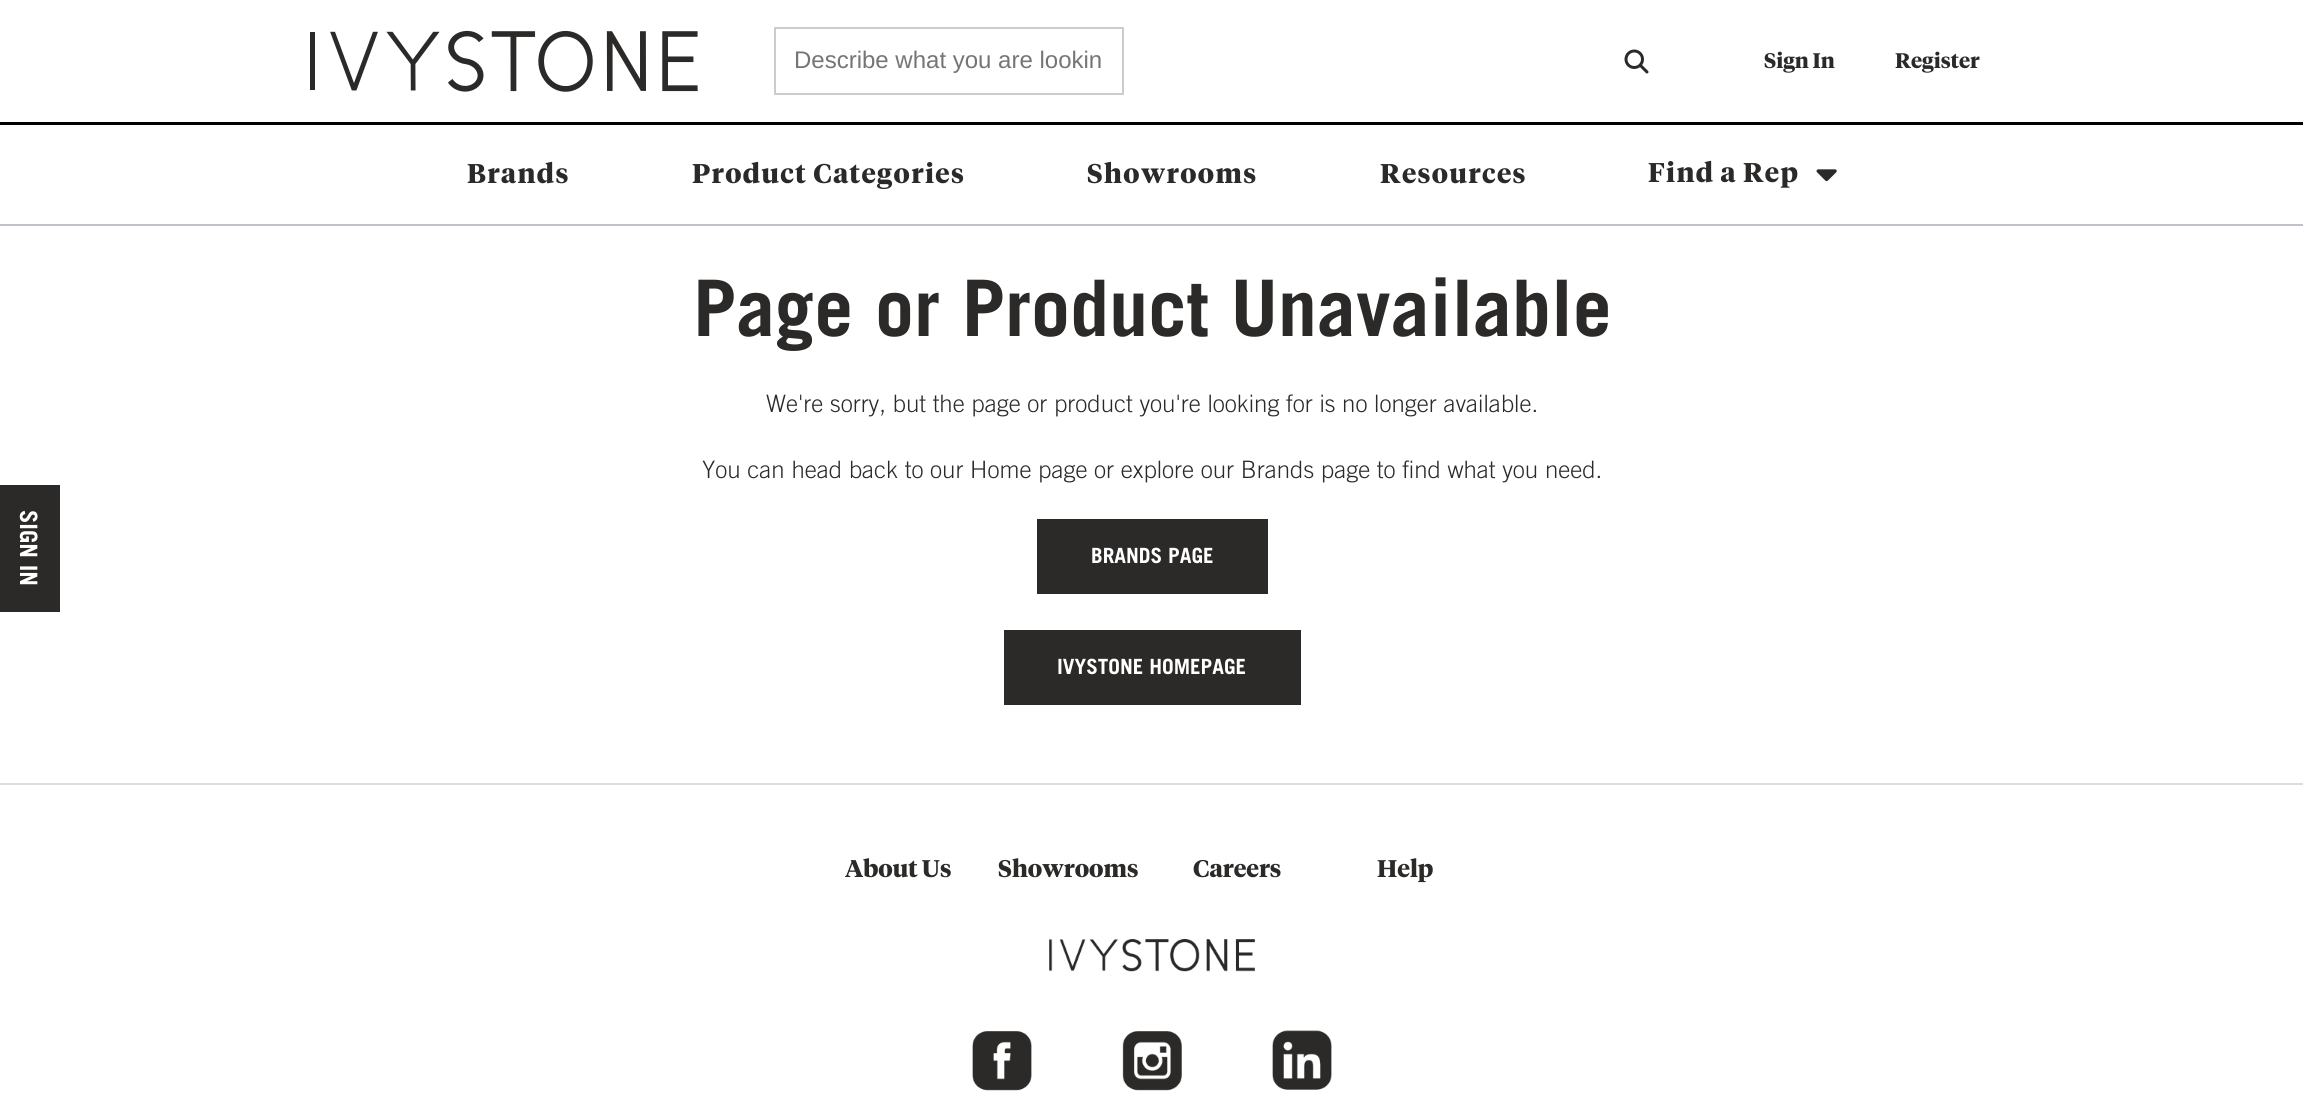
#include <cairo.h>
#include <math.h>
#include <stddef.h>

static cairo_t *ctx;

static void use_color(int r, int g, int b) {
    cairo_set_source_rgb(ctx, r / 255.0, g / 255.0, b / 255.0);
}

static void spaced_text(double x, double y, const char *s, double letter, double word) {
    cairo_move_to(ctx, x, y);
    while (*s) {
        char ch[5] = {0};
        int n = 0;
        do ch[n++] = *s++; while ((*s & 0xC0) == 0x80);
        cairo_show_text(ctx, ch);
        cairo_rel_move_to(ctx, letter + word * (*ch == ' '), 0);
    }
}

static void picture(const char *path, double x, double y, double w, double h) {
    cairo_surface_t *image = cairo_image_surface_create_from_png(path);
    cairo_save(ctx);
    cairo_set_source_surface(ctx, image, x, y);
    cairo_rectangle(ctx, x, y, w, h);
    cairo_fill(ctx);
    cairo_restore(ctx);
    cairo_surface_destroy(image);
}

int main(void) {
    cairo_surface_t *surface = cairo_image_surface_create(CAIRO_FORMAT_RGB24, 2303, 1096);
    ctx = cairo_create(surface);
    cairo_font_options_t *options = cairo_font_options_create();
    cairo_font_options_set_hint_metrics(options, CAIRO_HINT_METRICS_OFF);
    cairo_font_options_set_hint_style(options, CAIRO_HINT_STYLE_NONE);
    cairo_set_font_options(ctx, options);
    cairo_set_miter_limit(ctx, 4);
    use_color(255, 255, 255);
    cairo_paint(ctx);
    use_color(44, 42, 41);
    cairo_rectangle(ctx, 0, 486, 58, 124);
    cairo_fill(ctx);
    cairo_rectangle(ctx, 58, 485, 2, 127);
    cairo_fill(ctx);
    cairo_rectangle(ctx, 0, 610, 60, 2);
    cairo_fill(ctx);
    cairo_rectangle(ctx, 0, 485, 60, 1);
    cairo_fill(ctx);
    cairo_select_font_face(ctx, "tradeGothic", CAIRO_FONT_SLANT_NORMAL, CAIRO_FONT_WEIGHT_BOLD);
    cairo_set_font_size(ctx, 24);
    use_color(255, 255, 255);
    cairo_save(ctx);
    cairo_translate(ctx, 20, 510);
    cairo_rotate(ctx, 90 * M_PI / 180);
    cairo_move_to(ctx, 0, 0);
    cairo_show_text(ctx, "SIGN IN");
    cairo_restore(ctx);
    use_color(190, 195, 202);
    cairo_rectangle(ctx, 0, 224, 2303, 2);
    cairo_fill(ctx);
    use_color(0, 0, 0);
    cairo_rectangle(ctx, 0, 122, 2303, 3);
    cairo_fill(ctx);
    picture("img1.png", 310, 30, 388, 62);
    cairo_rectangle(ctx, 775, 28, 348, 66);
    use_color(204, 204, 204);
    cairo_stroke(ctx);
    cairo_select_font_face(ctx, "Liberation Sans", CAIRO_FONT_SLANT_NORMAL, CAIRO_FONT_WEIGHT_NORMAL);
    use_color(117, 117, 117);
    cairo_move_to(ctx, 794, 68);
    cairo_show_text(ctx, "Describe what you are lookin");
    picture("img2.png", 1624, 49, 25, 25);
    cairo_select_font_face(ctx, "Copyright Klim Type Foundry", CAIRO_FONT_SLANT_NORMAL, CAIRO_FONT_WEIGHT_BOLD);
    cairo_set_font_size(ctx, 21);
    use_color(44, 42, 41);
    cairo_move_to(ctx, 1764, 68);
    cairo_show_text(ctx, "Sign In");
    cairo_move_to(ctx, 1895, 68);
    cairo_show_text(ctx, "Register");
    cairo_set_font_size(ctx, 27);
    spaced_text(467, 183, "Brands", 1.4, 0);
    spaced_text(692, 183, "Product Categories", 1.4, 0);
    spaced_text(1087, 183, "Showrooms", 1.4, 0);
    spaced_text(1380, 183, "Resources", 1.4, 0);
    spaced_text(1648, 182, "Find a Rep", 1.4, 0);
    picture("img3.png", 1816, 169, 21, 13);
    cairo_select_font_face(ctx, "tradeGothic", CAIRO_FONT_SLANT_NORMAL, CAIRO_FONT_WEIGHT_BOLD);
    cairo_set_font_size(ctx, 78);
    cairo_move_to(ctx, 693, 336);
    cairo_show_text(ctx, "Page or Product Unavailable");
    cairo_select_font_face(ctx, "tradeGothic Light", CAIRO_FONT_SLANT_NORMAL, CAIRO_FONT_WEIGHT_NORMAL);
    cairo_set_font_size(ctx, 24);
    cairo_move_to(ctx, 766, 412);
    cairo_show_text(ctx, "We're sorry, but the page or product you're looking for is no longer available.");
    cairo_move_to(ctx, 702, 478);
    cairo_show_text(ctx, "You can head back to our Home page or explore our Brands page to find what you need.");
    cairo_rectangle(ctx, 1037, 519, 231, 75);
    cairo_fill(ctx);
    cairo_select_font_face(ctx, "tradeGothic", CAIRO_FONT_SLANT_NORMAL, CAIRO_FONT_WEIGHT_BOLD);
    cairo_set_font_size(ctx, 21);
    use_color(255, 255, 255);
    cairo_move_to(ctx, 1091, 563);
    cairo_show_text(ctx, "BRANDS PAGE");
    use_color(44, 42, 41);
    cairo_rectangle(ctx, 1004, 630, 297, 75);
    cairo_fill(ctx);
    use_color(255, 255, 255);
    cairo_move_to(ctx, 1057, 674);
    cairo_show_text(ctx, "IVYSTONE HOMEPAGE");
    use_color(221, 221, 221);
    cairo_rectangle(ctx, 0, 783, 2303, 2);
    cairo_fill(ctx);
    cairo_select_font_face(ctx, "Copyright Klim Type Foundry", CAIRO_FONT_SLANT_NORMAL, CAIRO_FONT_WEIGHT_BOLD);
    cairo_set_font_size(ctx, 24);
    use_color(44, 42, 41);
    cairo_move_to(ctx, 845, 877);
    cairo_show_text(ctx, "About Us");
    cairo_move_to(ctx, 998, 877);
    cairo_show_text(ctx, "Showrooms");
    cairo_move_to(ctx, 1193, 877);
    cairo_show_text(ctx, "Careers");
    cairo_move_to(ctx, 1377, 877);
    cairo_show_text(ctx, "Help");
    picture("img4.png", 1049, 939, 206, 33);
    picture("img5.png", 972, 1031, 60, 60);
    picture("img6.png", 1122, 1031, 60, 60);
    picture("img7.png", 1272, 1030, 60, 60);
    cairo_surface_write_to_png(surface, "result.png");
    cairo_font_options_destroy(options);
    cairo_destroy(ctx);
    cairo_surface_destroy(surface);
    return 0;
}
